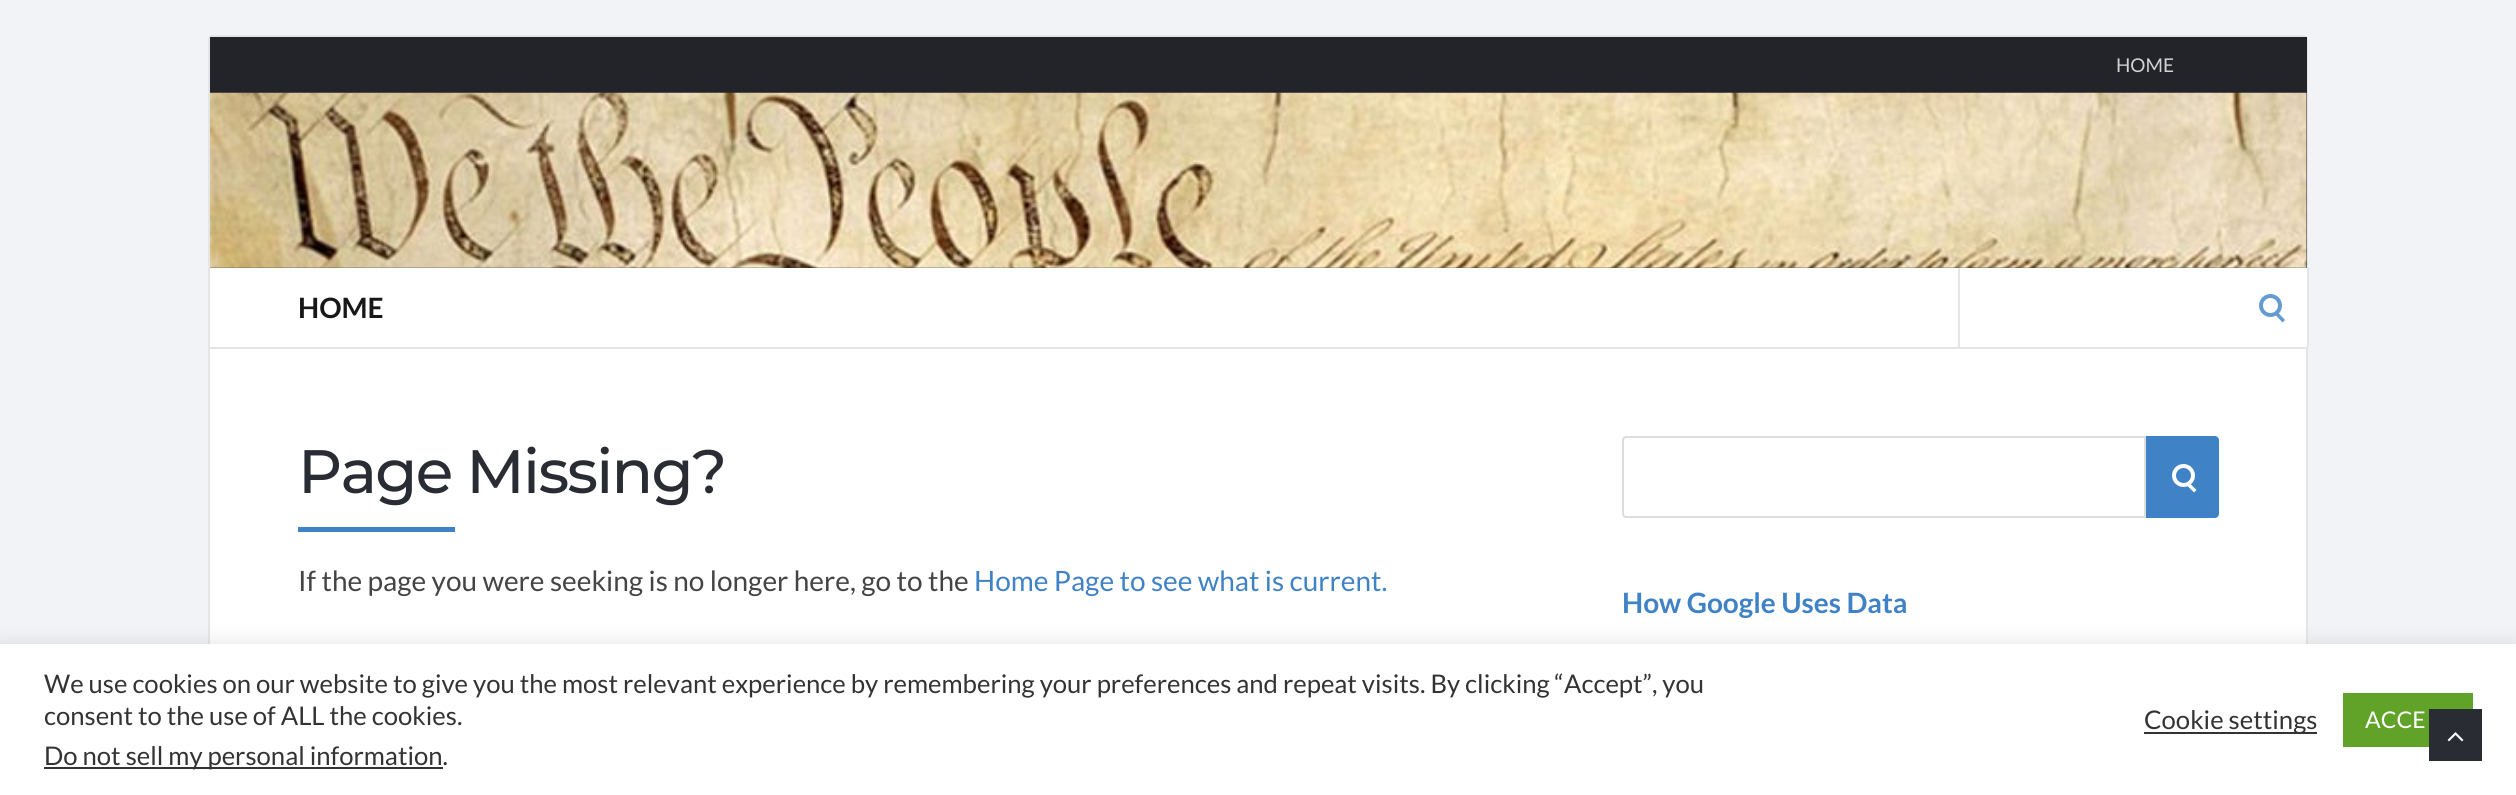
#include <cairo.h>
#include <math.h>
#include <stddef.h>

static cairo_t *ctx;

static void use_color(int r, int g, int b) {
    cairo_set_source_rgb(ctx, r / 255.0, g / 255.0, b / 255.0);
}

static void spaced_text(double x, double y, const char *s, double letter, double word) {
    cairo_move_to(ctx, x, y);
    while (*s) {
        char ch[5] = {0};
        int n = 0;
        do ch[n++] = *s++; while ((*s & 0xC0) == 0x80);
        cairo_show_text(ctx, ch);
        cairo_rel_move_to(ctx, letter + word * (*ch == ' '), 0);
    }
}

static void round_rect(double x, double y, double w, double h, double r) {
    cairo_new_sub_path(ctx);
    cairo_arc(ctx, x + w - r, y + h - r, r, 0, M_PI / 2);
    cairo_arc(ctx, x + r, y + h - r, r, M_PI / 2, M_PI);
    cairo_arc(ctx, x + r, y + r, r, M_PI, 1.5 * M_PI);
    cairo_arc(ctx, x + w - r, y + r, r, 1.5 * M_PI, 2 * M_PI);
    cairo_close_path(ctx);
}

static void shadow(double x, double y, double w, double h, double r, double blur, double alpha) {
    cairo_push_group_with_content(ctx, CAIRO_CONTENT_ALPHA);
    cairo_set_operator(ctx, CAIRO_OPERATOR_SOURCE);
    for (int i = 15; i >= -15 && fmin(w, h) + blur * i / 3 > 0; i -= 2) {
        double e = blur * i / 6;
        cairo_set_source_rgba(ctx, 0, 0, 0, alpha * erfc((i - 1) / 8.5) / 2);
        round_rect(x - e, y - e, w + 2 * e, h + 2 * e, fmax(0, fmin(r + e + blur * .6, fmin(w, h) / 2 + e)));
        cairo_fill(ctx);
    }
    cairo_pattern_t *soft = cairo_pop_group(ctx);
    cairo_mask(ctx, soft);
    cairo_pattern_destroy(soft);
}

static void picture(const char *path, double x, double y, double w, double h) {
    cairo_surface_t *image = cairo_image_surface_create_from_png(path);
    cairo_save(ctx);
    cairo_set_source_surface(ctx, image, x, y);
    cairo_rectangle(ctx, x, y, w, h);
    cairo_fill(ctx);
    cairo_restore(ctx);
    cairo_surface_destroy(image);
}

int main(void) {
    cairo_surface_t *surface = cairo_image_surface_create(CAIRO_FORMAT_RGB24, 2516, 795);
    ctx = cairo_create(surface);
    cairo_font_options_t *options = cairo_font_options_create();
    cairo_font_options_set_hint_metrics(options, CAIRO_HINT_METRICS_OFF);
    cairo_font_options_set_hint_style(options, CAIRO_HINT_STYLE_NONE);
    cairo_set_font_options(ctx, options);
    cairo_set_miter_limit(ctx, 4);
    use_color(241, 243, 246);
    cairo_paint(ctx);
    use_color(255, 255, 255);
    round_rect(209, 36, 2098, 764, 3);
    cairo_fill_preserve(ctx);
    use_color(228, 229, 231);
    cairo_stroke(ctx);
    use_color(34, 36, 42);
    cairo_rectangle(ctx, 210, 37, 2097, 56);
    cairo_fill(ctx);
    cairo_select_font_face(ctx, "Lato", CAIRO_FONT_SLANT_NORMAL, CAIRO_FONT_WEIGHT_NORMAL);
    cairo_set_font_size(ctx, 19);
    use_color(211, 211, 212);
    cairo_move_to(ctx, 2116, 72);
    cairo_show_text(ctx, "HOME");
    use_color(41, 44, 51);
    cairo_rectangle(ctx, 210, 93, 2097, 175);
    cairo_fill(ctx);
    picture("img1.png", 210, 92, 2097, 176);
    use_color(255, 255, 255);
    cairo_rectangle(ctx, 2306, 268, 1, 79);
    cairo_fill(ctx);
    use_color(228, 229, 231);
    cairo_rectangle(ctx, 210, 347, 2097, 2);
    cairo_fill(ctx);
    cairo_select_font_face(ctx, "Lato", CAIRO_FONT_SLANT_NORMAL, CAIRO_FONT_WEIGHT_BOLD);
    cairo_set_font_size(ctx, 28);
    use_color(24, 24, 24);
    cairo_move_to(ctx, 298, 318);
    cairo_show_text(ctx, "HOME");
    use_color(228, 229, 231);
    cairo_rectangle(ctx, 2308, 268, 1, 79);
    cairo_fill(ctx);
    use_color(229, 229, 229);
    cairo_rectangle(ctx, 1958, 268, 2, 79);
    cairo_fill(ctx);
    cairo_arc(ctx, 2270.5, 305.5, 9.5, 0, 2 * M_PI);
    use_color(102, 155, 209);
    cairo_set_line_width(ctx, 4);
    cairo_stroke(ctx);
    cairo_new_path(ctx);
    cairo_move_to(ctx, 2275.5, 315);
    cairo_line_to(ctx, 2278, 312.5);
    cairo_line_to(ctx, 2285, 320);
    cairo_line_to(ctx, 2282.5, 322.5);
    cairo_close_path(ctx);
    cairo_fill(ctx);
    cairo_select_font_face(ctx, "Montserrat Medium", CAIRO_FONT_SLANT_NORMAL, CAIRO_FONT_WEIGHT_NORMAL);
    cairo_set_font_size(ctx, 61.25);
    use_color(41, 44, 51);
    spaced_text(298, 493, "Page Missing?", -1.75, 0);
    use_color(64, 130, 198);
    cairo_rectangle(ctx, 298, 527, 157, 5);
    cairo_fill(ctx);
    cairo_select_font_face(ctx, "Lato", CAIRO_FONT_SLANT_NORMAL, CAIRO_FONT_WEIGHT_NORMAL);
    cairo_set_font_size(ctx, 28);
    use_color(68, 68, 68);
    cairo_move_to(ctx, 298, 591);
    cairo_show_text(ctx, "If the page you were seeking is no longer here, go to the");
    use_color(64, 130, 198);
    cairo_move_to(ctx, 974, 591);
    cairo_show_text(ctx, "Home Page to see what is current.");
    cairo_new_path(ctx);
    cairo_move_to(ctx, 1626, 437);
    cairo_line_to(ctx, 2145, 437);
    cairo_line_to(ctx, 2145, 517);
    cairo_line_to(ctx, 1626, 517);
    cairo_curve_to(ctx, 1624.5, 517, 1623, 515.5, 1623, 514);
    cairo_line_to(ctx, 1623, 440);
    cairo_curve_to(ctx, 1623, 438.5, 1624.5, 437, 1626, 437);
    cairo_close_path(ctx);
    use_color(221, 221, 221);
    cairo_set_line_width(ctx, 2);
    cairo_stroke(ctx);
    use_color(64, 130, 198);
    cairo_new_path(ctx);
    cairo_move_to(ctx, 2146, 436);
    cairo_line_to(ctx, 2215, 436);
    cairo_curve_to(ctx, 2217, 436, 2219, 438, 2219, 440);
    cairo_line_to(ctx, 2219, 514);
    cairo_curve_to(ctx, 2219, 516, 2217, 518, 2215, 518);
    cairo_line_to(ctx, 2146, 518);
    cairo_close_path(ctx);
    cairo_fill(ctx);
    cairo_arc(ctx, 2183.5, 475.5, 9.5, 0, 2 * M_PI);
    use_color(255, 255, 255);
    cairo_set_line_width(ctx, 4);
    cairo_stroke(ctx);
    cairo_new_path(ctx);
    cairo_move_to(ctx, 2186.5, 485);
    cairo_line_to(ctx, 2189, 482.5);
    cairo_line_to(ctx, 2196.5, 490);
    cairo_line_to(ctx, 2194, 492.5);
    cairo_close_path(ctx);
    cairo_fill(ctx);
    cairo_select_font_face(ctx, "Lato", CAIRO_FONT_SLANT_NORMAL, CAIRO_FONT_WEIGHT_BOLD);
    use_color(64, 130, 198);
    cairo_move_to(ctx, 1622, 613);
    cairo_show_text(ctx, "How Google Uses Data");
    use_color(172, 171, 171);
    shadow(0, 642, 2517, 153, 0, 9, 0.3);
    use_color(255, 255, 255);
    cairo_rectangle(ctx, 0, 644, 2516, 151);
    cairo_fill(ctx);
    cairo_select_font_face(ctx, "Lato", CAIRO_FONT_SLANT_NORMAL, CAIRO_FONT_WEIGHT_NORMAL);
    cairo_set_font_size(ctx, 25.67);
    use_color(51, 51, 51);
    cairo_move_to(ctx, 44, 693);
    cairo_show_text(ctx, "We use cookies on our website to give you the most relevant experience by remembering your preferences and repeat visits. By clicking “Accept”, you");
    cairo_move_to(ctx, 44, 725);
    cairo_show_text(ctx, "consent to the use of ALL the cookies.");
    cairo_rectangle(ctx, 44, 767, 399, 2);
    cairo_fill(ctx);
    cairo_move_to(ctx, 44, 765);
    cairo_show_text(ctx, "Do not sell my personal information.");
    cairo_rectangle(ctx, 2144, 732, 173, 2);
    cairo_fill(ctx);
    cairo_move_to(ctx, 2144, 729);
    cairo_show_text(ctx, "Cookie settings");
    use_color(97, 162, 41);
    cairo_rectangle(ctx, 2343, 693, 130, 54);
    cairo_fill(ctx);
    cairo_set_font_size(ctx, 23);
    use_color(255, 255, 255);
    cairo_move_to(ctx, 2365, 728);
    cairo_show_text(ctx, "ACCE");
    use_color(41, 44, 51);
    cairo_rectangle(ctx, 2429, 709, 53, 52);
    cairo_fill(ctx);
    picture("img2.png", 2447, 732, 17, 10);
    cairo_surface_write_to_png(surface, "result.png");
    cairo_font_options_destroy(options);
    cairo_destroy(ctx);
    cairo_surface_destroy(surface);
    return 0;
}
